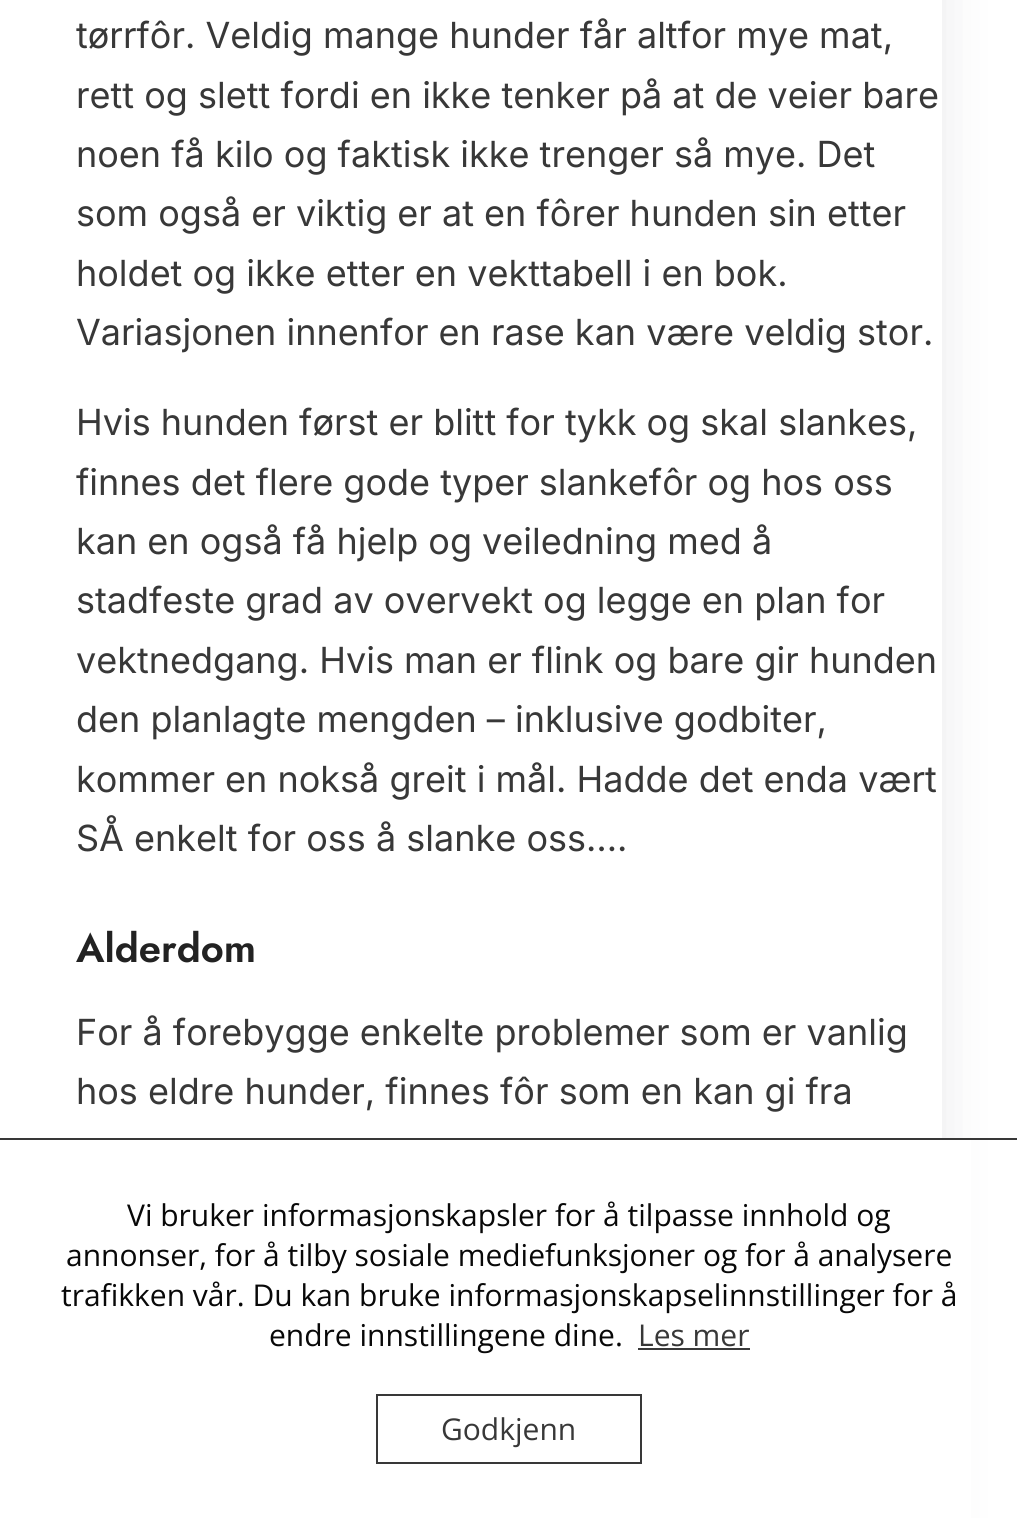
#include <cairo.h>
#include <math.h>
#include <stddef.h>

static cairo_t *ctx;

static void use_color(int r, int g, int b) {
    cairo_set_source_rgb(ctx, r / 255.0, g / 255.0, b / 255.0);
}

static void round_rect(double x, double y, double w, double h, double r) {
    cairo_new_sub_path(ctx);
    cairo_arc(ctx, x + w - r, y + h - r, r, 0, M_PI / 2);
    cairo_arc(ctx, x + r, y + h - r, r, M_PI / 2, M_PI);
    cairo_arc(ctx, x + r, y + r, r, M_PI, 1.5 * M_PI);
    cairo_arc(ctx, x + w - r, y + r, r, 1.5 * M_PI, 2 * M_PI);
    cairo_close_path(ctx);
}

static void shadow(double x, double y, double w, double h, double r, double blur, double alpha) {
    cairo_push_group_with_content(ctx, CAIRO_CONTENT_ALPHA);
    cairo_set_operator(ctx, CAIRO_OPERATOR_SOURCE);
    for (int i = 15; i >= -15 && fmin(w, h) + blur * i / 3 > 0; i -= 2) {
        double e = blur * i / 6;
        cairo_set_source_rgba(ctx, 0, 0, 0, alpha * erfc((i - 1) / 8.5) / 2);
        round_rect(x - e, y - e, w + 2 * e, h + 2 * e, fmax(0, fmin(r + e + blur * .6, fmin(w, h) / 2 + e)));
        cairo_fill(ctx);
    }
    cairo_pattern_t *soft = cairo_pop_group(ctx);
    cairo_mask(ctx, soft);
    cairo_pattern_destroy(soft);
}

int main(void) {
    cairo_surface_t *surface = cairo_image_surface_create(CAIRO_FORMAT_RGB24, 1017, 1518);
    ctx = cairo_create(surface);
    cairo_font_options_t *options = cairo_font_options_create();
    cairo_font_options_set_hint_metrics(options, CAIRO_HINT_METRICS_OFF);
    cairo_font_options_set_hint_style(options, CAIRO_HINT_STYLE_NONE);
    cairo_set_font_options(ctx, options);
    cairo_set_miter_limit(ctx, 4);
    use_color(255, 255, 255);
    cairo_paint(ctx);
    cairo_save(ctx);
    cairo_rectangle(ctx, 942, 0, 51, 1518);
    cairo_clip(ctx);
    use_color(233, 233, 235);
    shadow(176, -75, 766, 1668, 0, 25, 1);
    cairo_restore(ctx);
    cairo_select_font_face(ctx, "Inter", CAIRO_FONT_SLANT_NORMAL, CAIRO_FONT_WEIGHT_NORMAL);
    cairo_set_font_size(ctx, 36);
    use_color(56, 56, 56);
    cairo_move_to(ctx, 76, 48);
    cairo_show_text(ctx, "tørrfôr. Veldig mange hunder får altfor mye mat,");
    cairo_move_to(ctx, 76, 108);
    cairo_show_text(ctx, "rett og slett fordi en ikke tenker på at de veier bare");
    cairo_move_to(ctx, 76, 167);
    cairo_show_text(ctx, "noen få kilo og faktisk ikke trenger så mye. Det");
    cairo_move_to(ctx, 76, 226);
    cairo_show_text(ctx, "som også er viktig er at en fôrer hunden sin etter");
    cairo_move_to(ctx, 76, 286);
    cairo_show_text(ctx, "holdet og ikke etter en vekttabell i en bok.");
    cairo_move_to(ctx, 76, 345);
    cairo_show_text(ctx, "Variasjonen innenfor en rase kan være veldig stor.");
    cairo_move_to(ctx, 76, 435);
    cairo_show_text(ctx, "Hvis hunden først er blitt for tykk og skal slankes,");
    cairo_move_to(ctx, 76, 495);
    cairo_show_text(ctx, "finnes det flere gode typer slankefôr og hos oss");
    cairo_move_to(ctx, 76, 554);
    cairo_show_text(ctx, "kan en også få hjelp og veiledning med å");
    cairo_move_to(ctx, 76, 613);
    cairo_show_text(ctx, "stadfeste grad av overvekt og legge en plan for");
    cairo_move_to(ctx, 76, 673);
    cairo_show_text(ctx, "vektnedgang. Hvis man er flink og bare gir hunden");
    cairo_move_to(ctx, 76, 732);
    cairo_show_text(ctx, "den planlagte mengden – inklusive godbiter,");
    cairo_move_to(ctx, 76, 792);
    cairo_show_text(ctx, "kommer en nokså greit i mål. Hadde det enda vært");
    cairo_move_to(ctx, 76, 851);
    cairo_show_text(ctx, "SÅ enkelt for oss å slanke oss….");
    cairo_select_font_face(ctx, "Jost SemiBold", CAIRO_FONT_SLANT_NORMAL, CAIRO_FONT_WEIGHT_NORMAL);
    cairo_set_font_size(ctx, 40);
    use_color(34, 34, 34);
    cairo_move_to(ctx, 76, 962);
    cairo_show_text(ctx, "Alderdom");
    cairo_select_font_face(ctx, "Inter", CAIRO_FONT_SLANT_NORMAL, CAIRO_FONT_WEIGHT_NORMAL);
    cairo_set_font_size(ctx, 36);
    use_color(56, 56, 56);
    cairo_move_to(ctx, 76, 1045);
    cairo_show_text(ctx, "For å forebygge enkelte problemer som er vanlig");
    cairo_move_to(ctx, 76, 1104);
    cairo_show_text(ctx, "hos eldre hunder, finnes fôr som en kan gi fra");
    cairo_set_source_rgba(ctx, 1, 1, 1, 0.97);
    cairo_rectangle(ctx, 942, 1138, 29, 380);
    cairo_fill(ctx);
    cairo_set_source_rgba(ctx, 0.2, 0.2, 0.2, 0.97);
    cairo_rectangle(ctx, 0, 1138, 1017, 2);
    cairo_fill(ctx);
    cairo_select_font_face(ctx, "Open Sans", CAIRO_FONT_SLANT_NORMAL, CAIRO_FONT_WEIGHT_NORMAL);
    cairo_set_font_size(ctx, 30);
    use_color(8, 8, 8);
    cairo_move_to(ctx, 127, 1226);
    cairo_show_text(ctx, "Vi bruker informasjonskapsler for å tilpasse innhold og");
    cairo_move_to(ctx, 66, 1266);
    cairo_show_text(ctx, "annonser, for å tilby sosiale mediefunksjoner og for å analysere");
    cairo_move_to(ctx, 61, 1306);
    cairo_show_text(ctx, "trafikken vår. Du kan bruke informasjonskapselinnstillinger for å");
    cairo_move_to(ctx, 269, 1346);
    cairo_show_text(ctx, "endre innstillingene dine.");
    use_color(56, 56, 56);
    cairo_move_to(ctx, 638, 1346);
    cairo_show_text(ctx, "Les mer");
    use_color(57, 57, 57);
    cairo_rectangle(ctx, 638, 1348, 112, 2);
    cairo_fill(ctx);
    cairo_rectangle(ctx, 377, 1395, 264, 68);
    cairo_set_source_rgba(ctx, 0.2, 0.2, 0.2, 0.97);
    cairo_stroke(ctx);
    use_color(56, 56, 56);
    cairo_move_to(ctx, 441, 1440);
    cairo_show_text(ctx, "Godkjenn");
    cairo_surface_write_to_png(surface, "result.png");
    cairo_font_options_destroy(options);
    cairo_destroy(ctx);
    cairo_surface_destroy(surface);
    return 0;
}
